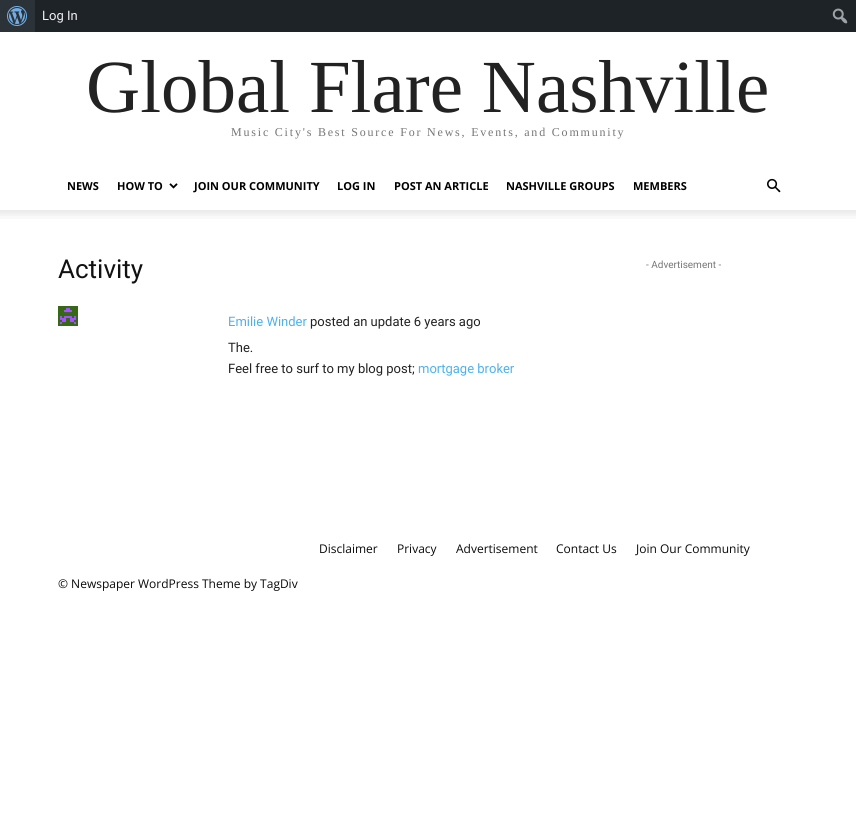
#include <cairo.h>
#include <math.h>
#include <stddef.h>

static cairo_t *ctx;

static void use_color(int r, int g, int b) {
    cairo_set_source_rgb(ctx, r / 255.0, g / 255.0, b / 255.0);
}

static void spaced_text(double x, double y, const char *s, double letter, double word) {
    cairo_move_to(ctx, x, y);
    while (*s) {
        char ch[5] = {0};
        int n = 0;
        do ch[n++] = *s++; while ((*s & 0xC0) == 0x80);
        cairo_show_text(ctx, ch);
        cairo_rel_move_to(ctx, letter + word * (*ch == ' '), 0);
    }
}

static void picture(const char *path, double x, double y, double w, double h) {
    cairo_surface_t *image = cairo_image_surface_create_from_png(path);
    cairo_save(ctx);
    cairo_set_source_surface(ctx, image, x, y);
    cairo_rectangle(ctx, x, y, w, h);
    cairo_fill(ctx);
    cairo_restore(ctx);
    cairo_surface_destroy(image);
}

int main(void) {
    cairo_surface_t *surface = cairo_image_surface_create(CAIRO_FORMAT_RGB24, 856, 813);
    ctx = cairo_create(surface);
    cairo_font_options_t *options = cairo_font_options_create();
    cairo_font_options_set_hint_metrics(options, CAIRO_HINT_METRICS_OFF);
    cairo_font_options_set_hint_style(options, CAIRO_HINT_STYLE_NONE);
    cairo_set_font_options(ctx, options);
    cairo_set_miter_limit(ctx, 4);
    use_color(255, 255, 255);
    cairo_paint(ctx);
    use_color(29, 35, 39);
    cairo_rectangle(ctx, 35, 0, 821, 32);
    cairo_fill(ctx);
    use_color(44, 51, 56);
    cairo_rectangle(ctx, 0, 0, 35, 32);
    cairo_fill(ctx);
    picture("img1.png", 7, 6, 20, 20);
    cairo_select_font_face(ctx, "Roboto", CAIRO_FONT_SLANT_NORMAL, CAIRO_FONT_WEIGHT_NORMAL);
    cairo_set_font_size(ctx, 13);
    use_color(240, 240, 241);
    cairo_move_to(ctx, 42, 20);
    cairo_show_text(ctx, "Log In");
    picture("img2.png", 832, 8, 16, 16);
    cairo_select_font_face(ctx, "Liberation Serif", CAIRO_FONT_SLANT_NORMAL, CAIRO_FONT_WEIGHT_NORMAL);
    cairo_set_font_size(ctx, 75);
    use_color(34, 34, 34);
    cairo_move_to(ctx, 86, 112);
    cairo_show_text(ctx, "Global Flare Nashville");
    cairo_set_font_size(ctx, 12);
    use_color(118, 118, 118);
    spaced_text(231, 136, "Music City's Best Source For News, Events, and Community", 1.8, 0);
    cairo_select_font_face(ctx, "Open Sans", CAIRO_FONT_SLANT_NORMAL, CAIRO_FONT_WEIGHT_BOLD);
    cairo_set_font_size(ctx, 11);
    use_color(0, 0, 0);
    cairo_move_to(ctx, 67, 190);
    cairo_show_text(ctx, "NEWS");
    cairo_move_to(ctx, 117, 190);
    cairo_show_text(ctx, "HOW TO");
    picture("img3.png", 169, 183, 9, 6);
    cairo_move_to(ctx, 194, 190);
    cairo_show_text(ctx, "JOIN OUR COMMUNITY");
    cairo_move_to(ctx, 337, 190);
    cairo_show_text(ctx, "LOG IN");
    cairo_move_to(ctx, 394, 190);
    cairo_show_text(ctx, "POST AN ARTICLE");
    cairo_move_to(ctx, 506, 190);
    cairo_show_text(ctx, "NASHVILLE GROUPS");
    cairo_move_to(ctx, 633, 190);
    cairo_show_text(ctx, "MEMBERS");
    picture("img4.png", 767, 178, 14, 15);
    picture("img5.png", 0, 210, 856, 9);
    cairo_select_font_face(ctx, "Roboto", CAIRO_FONT_SLANT_NORMAL, CAIRO_FONT_WEIGHT_NORMAL);
    cairo_set_font_size(ctx, 26);
    use_color(17, 17, 17);
    cairo_move_to(ctx, 58, 278);
    cairo_show_text(ctx, "Activity");
    picture("img6.png", 58, 306, 20, 20);
    cairo_set_font_size(ctx, 13);
    use_color(77, 178, 236);
    cairo_move_to(ctx, 228, 326);
    cairo_show_text(ctx, "Emilie Winder");
    use_color(34, 34, 34);
    cairo_move_to(ctx, 310, 326);
    cairo_show_text(ctx, "posted an update 6 years ago");
    cairo_move_to(ctx, 228, 352);
    cairo_show_text(ctx, "The.");
    cairo_move_to(ctx, 228, 373);
    cairo_show_text(ctx, "Feel free to surf to my blog post;");
    use_color(77, 178, 236);
    cairo_move_to(ctx, 418, 373);
    cairo_show_text(ctx, "mortgage broker");
    cairo_set_font_size(ctx, 10);
    use_color(118, 118, 118);
    cairo_move_to(ctx, 646, 268);
    cairo_show_text(ctx, "- Advertisement -");
    cairo_select_font_face(ctx, "Open Sans", CAIRO_FONT_SLANT_NORMAL, CAIRO_FONT_WEIGHT_NORMAL);
    cairo_set_font_size(ctx, 12);
    use_color(10, 10, 10);
    cairo_move_to(ctx, 319, 553);
    cairo_show_text(ctx, "Disclaimer");
    cairo_move_to(ctx, 397, 553);
    cairo_show_text(ctx, "Privacy");
    cairo_move_to(ctx, 456, 553);
    cairo_show_text(ctx, "Advertisement");
    cairo_move_to(ctx, 556, 553);
    cairo_show_text(ctx, "Contact Us");
    cairo_move_to(ctx, 636, 553);
    cairo_show_text(ctx, "Join Our Community");
    cairo_move_to(ctx, 58, 588);
    cairo_show_text(ctx, "© Newspaper WordPress Theme by TagDiv");
    cairo_surface_write_to_png(surface, "result.png");
    cairo_font_options_destroy(options);
    cairo_destroy(ctx);
    cairo_surface_destroy(surface);
    return 0;
}
